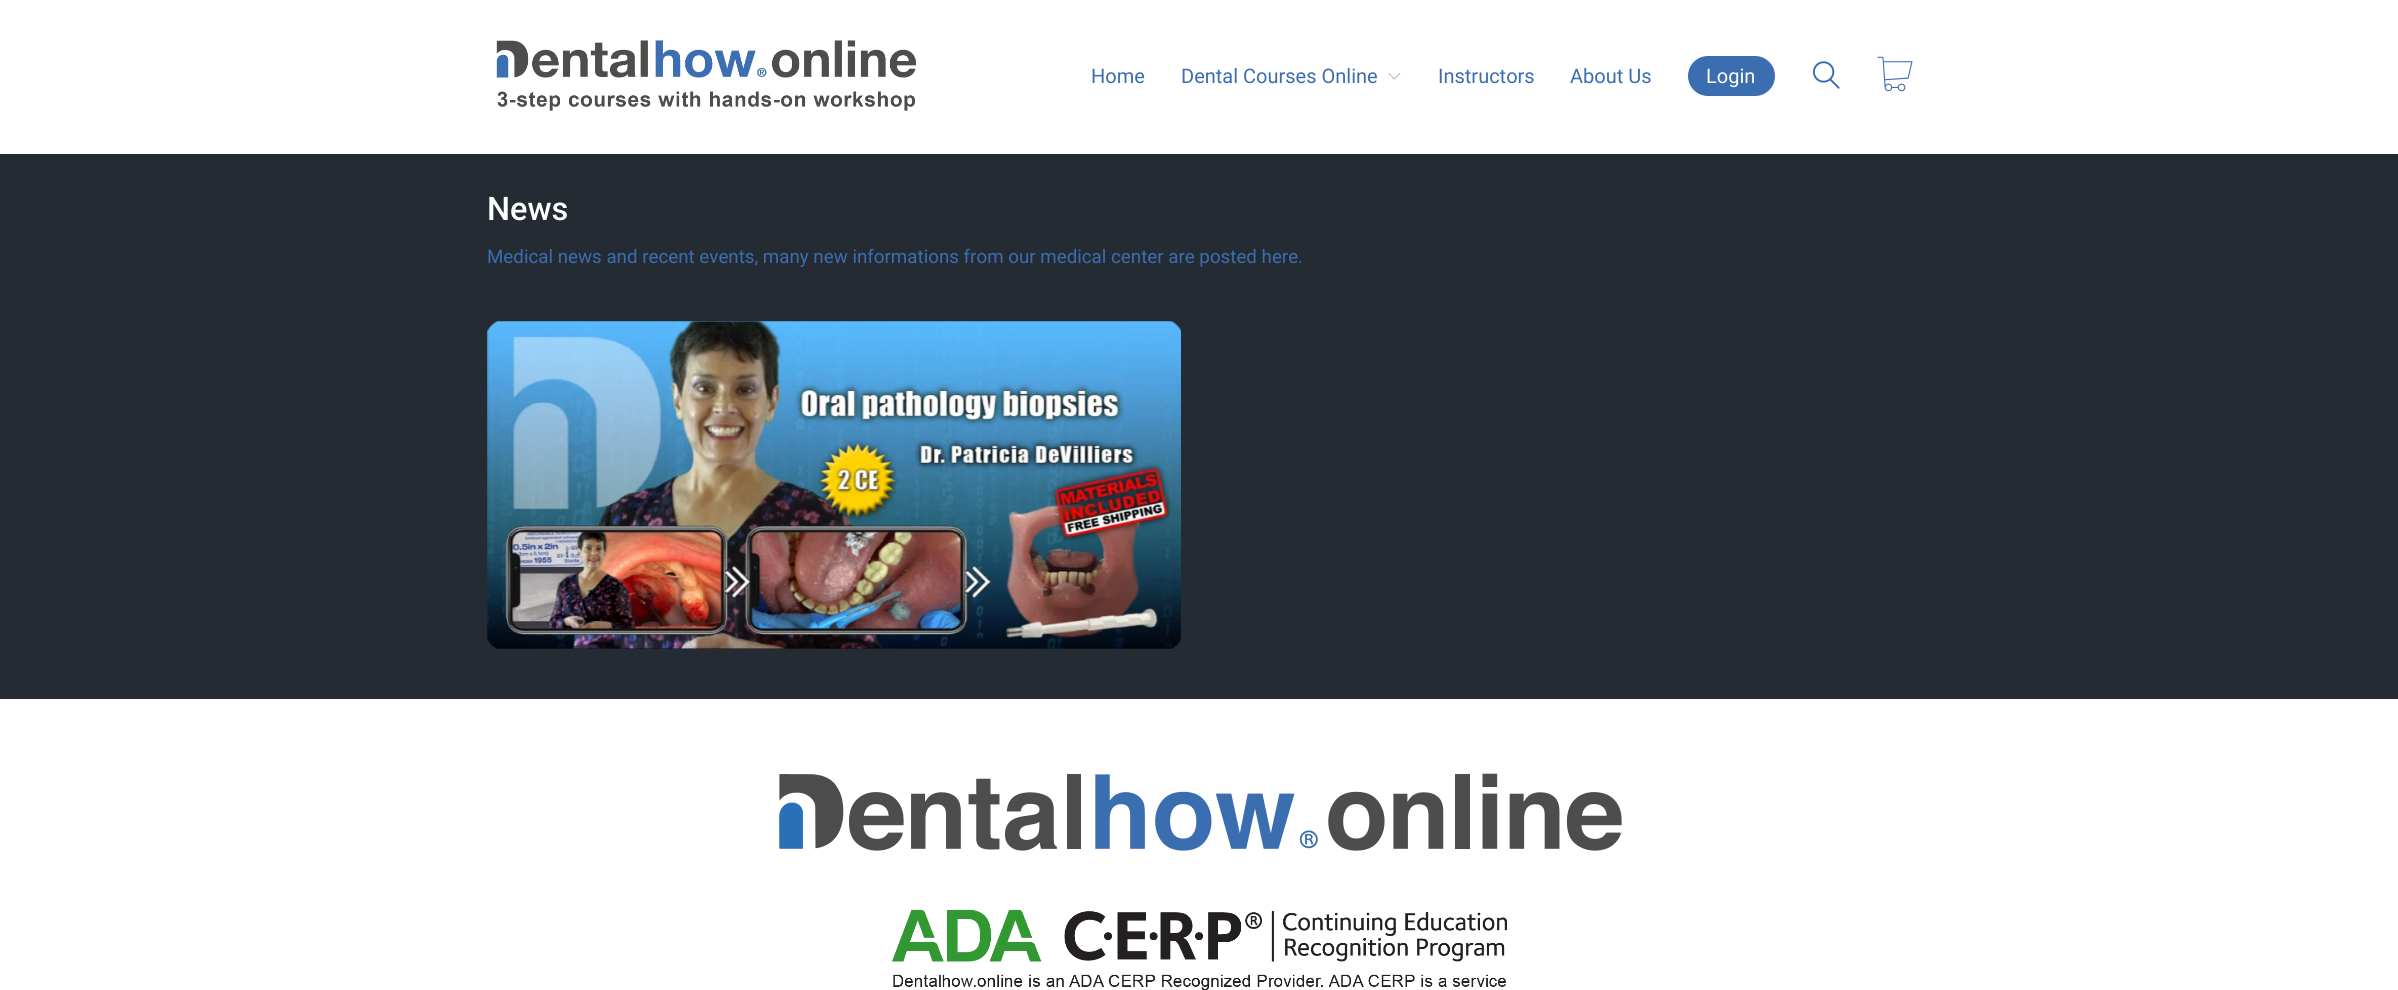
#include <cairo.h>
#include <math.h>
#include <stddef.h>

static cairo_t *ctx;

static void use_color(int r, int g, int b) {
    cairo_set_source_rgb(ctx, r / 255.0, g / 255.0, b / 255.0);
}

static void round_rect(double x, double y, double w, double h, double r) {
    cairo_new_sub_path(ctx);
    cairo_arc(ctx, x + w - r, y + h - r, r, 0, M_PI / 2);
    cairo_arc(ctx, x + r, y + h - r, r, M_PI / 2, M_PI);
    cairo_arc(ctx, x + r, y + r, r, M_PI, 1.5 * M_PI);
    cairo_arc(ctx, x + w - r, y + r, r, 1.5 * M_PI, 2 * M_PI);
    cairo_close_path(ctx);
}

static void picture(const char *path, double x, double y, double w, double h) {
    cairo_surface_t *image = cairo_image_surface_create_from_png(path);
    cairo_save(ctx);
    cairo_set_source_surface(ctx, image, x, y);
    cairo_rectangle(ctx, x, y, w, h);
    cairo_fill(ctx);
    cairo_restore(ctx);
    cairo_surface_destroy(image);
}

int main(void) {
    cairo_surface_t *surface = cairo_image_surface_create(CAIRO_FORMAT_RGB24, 2398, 990);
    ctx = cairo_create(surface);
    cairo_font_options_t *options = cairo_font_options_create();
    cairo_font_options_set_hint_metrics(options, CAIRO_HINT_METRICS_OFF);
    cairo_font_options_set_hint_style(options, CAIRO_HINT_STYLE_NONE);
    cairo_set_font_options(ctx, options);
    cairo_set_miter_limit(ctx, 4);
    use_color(37, 43, 50);
    cairo_paint(ctx);
    use_color(255, 255, 255);
    cairo_rectangle(ctx, 0, 0, 2398, 154);
    cairo_fill(ctx);
    picture("img1.png", 496, 40, 421, 71);
    cairo_select_font_face(ctx, "Roboto", CAIRO_FONT_SLANT_NORMAL, CAIRO_FONT_WEIGHT_NORMAL);
    cairo_set_font_size(ctx, 20);
    use_color(59, 109, 177);
    cairo_move_to(ctx, 1091, 83);
    cairo_show_text(ctx, "Home");
    cairo_move_to(ctx, 1181, 83);
    cairo_show_text(ctx, "Dental Courses Online");
    picture("img2.png", 1388, 72, 13, 8);
    cairo_move_to(ctx, 1438, 83);
    cairo_show_text(ctx, "Instructors");
    cairo_move_to(ctx, 1570, 83);
    cairo_show_text(ctx, "About Us");
    round_rect(1688, 56, 87, 40, 20);
    cairo_fill(ctx);
    use_color(255, 255, 255);
    cairo_move_to(ctx, 1706, 83);
    cairo_show_text(ctx, "Login");
    picture("img3.png", 1813, 61, 27, 28);
    picture("img4.png", 1877, 56, 36, 36);
    cairo_select_font_face(ctx, "Roboto Medium", CAIRO_FONT_SLANT_NORMAL, CAIRO_FONT_WEIGHT_NORMAL);
    cairo_set_font_size(ctx, 32.5);
    cairo_move_to(ctx, 487, 220);
    cairo_show_text(ctx, "News");
    cairo_select_font_face(ctx, "Roboto", CAIRO_FONT_SLANT_NORMAL, CAIRO_FONT_WEIGHT_NORMAL);
    cairo_set_font_size(ctx, 18.75);
    use_color(59, 109, 177);
    cairo_move_to(ctx, 487, 263);
    cairo_show_text(ctx, "Medical news and recent events, many new informations from our medical center are posted here.");
    picture("img5.png", 487, 321, 694, 328);
    use_color(255, 255, 255);
    cairo_rectangle(ctx, 0, 699, 2398, 291);
    cairo_fill(ctx);
    picture("img6.png", 779, 773, 843, 78);
    picture("img7.png", 892, 910, 615, 80);
    cairo_surface_write_to_png(surface, "result.png");
    cairo_font_options_destroy(options);
    cairo_destroy(ctx);
    cairo_surface_destroy(surface);
    return 0;
}
